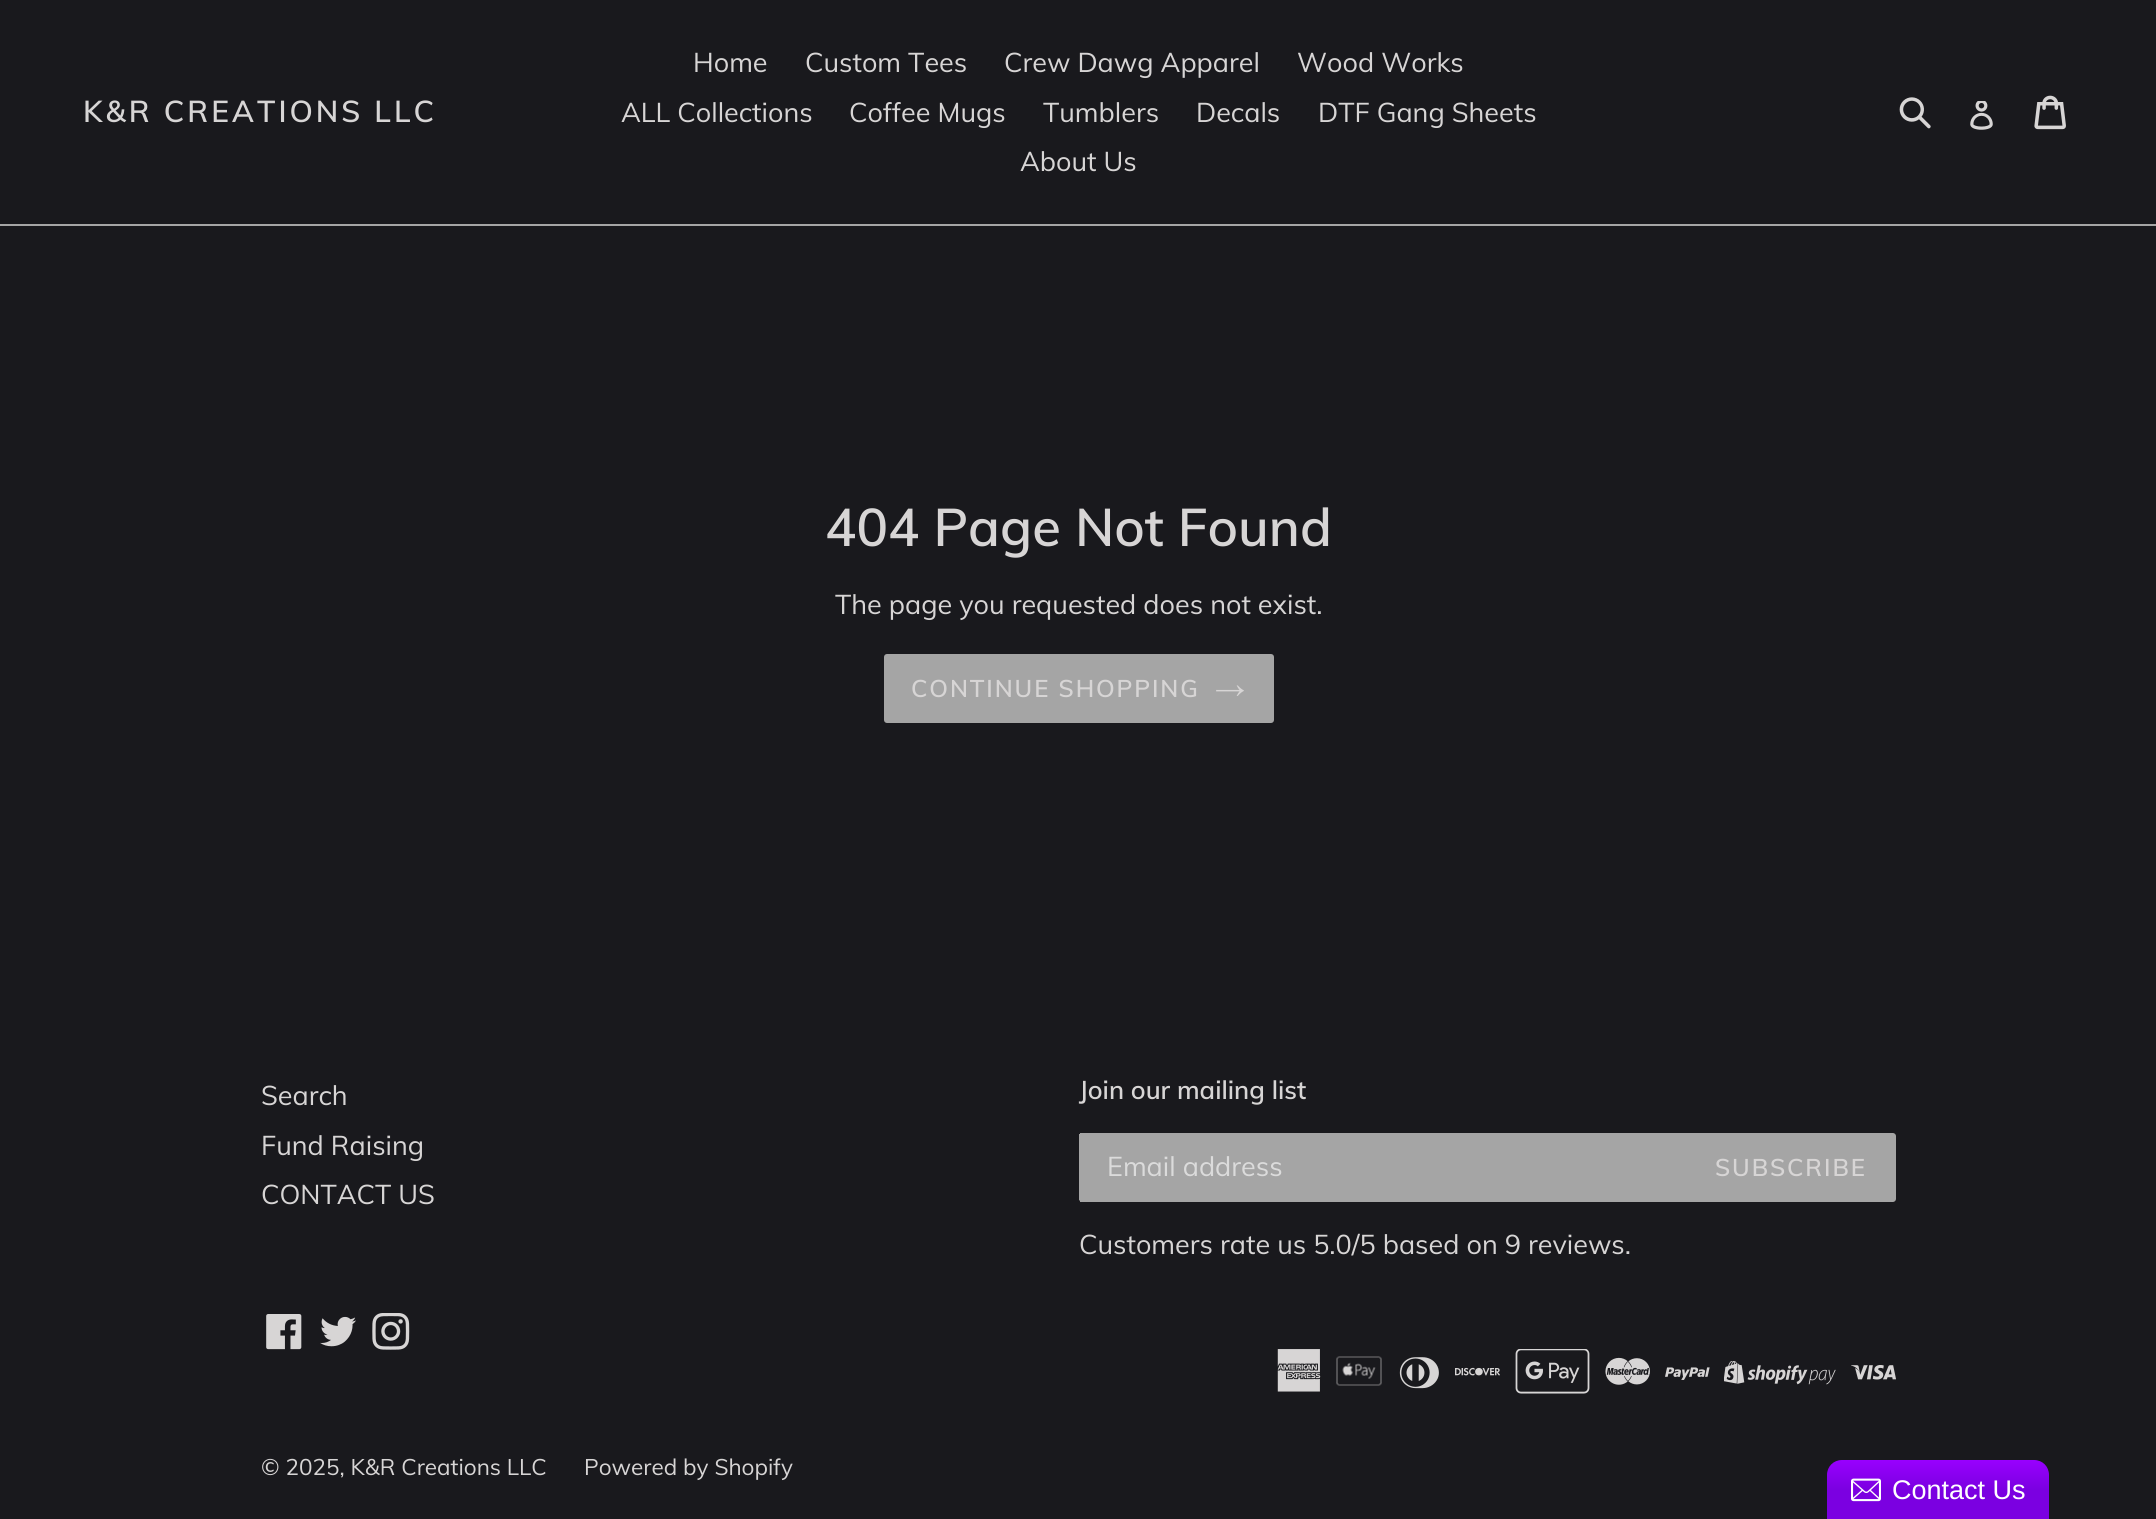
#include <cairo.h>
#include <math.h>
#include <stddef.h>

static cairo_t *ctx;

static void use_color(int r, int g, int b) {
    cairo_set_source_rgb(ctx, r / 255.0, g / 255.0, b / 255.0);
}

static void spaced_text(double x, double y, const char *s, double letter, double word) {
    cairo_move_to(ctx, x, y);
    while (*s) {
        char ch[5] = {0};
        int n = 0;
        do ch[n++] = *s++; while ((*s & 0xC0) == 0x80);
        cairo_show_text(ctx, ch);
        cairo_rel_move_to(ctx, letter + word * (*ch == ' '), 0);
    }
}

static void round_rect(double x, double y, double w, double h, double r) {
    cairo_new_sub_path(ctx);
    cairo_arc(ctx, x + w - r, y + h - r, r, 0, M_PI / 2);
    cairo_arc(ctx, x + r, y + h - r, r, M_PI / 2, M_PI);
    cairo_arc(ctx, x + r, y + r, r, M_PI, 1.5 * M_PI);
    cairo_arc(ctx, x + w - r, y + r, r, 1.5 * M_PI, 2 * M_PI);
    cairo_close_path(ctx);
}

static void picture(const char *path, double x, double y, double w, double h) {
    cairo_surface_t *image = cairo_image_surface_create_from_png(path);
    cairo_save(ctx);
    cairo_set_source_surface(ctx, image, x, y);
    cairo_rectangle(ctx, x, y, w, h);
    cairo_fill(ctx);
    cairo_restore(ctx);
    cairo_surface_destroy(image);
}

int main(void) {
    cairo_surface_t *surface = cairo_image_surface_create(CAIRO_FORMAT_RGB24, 2156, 1519);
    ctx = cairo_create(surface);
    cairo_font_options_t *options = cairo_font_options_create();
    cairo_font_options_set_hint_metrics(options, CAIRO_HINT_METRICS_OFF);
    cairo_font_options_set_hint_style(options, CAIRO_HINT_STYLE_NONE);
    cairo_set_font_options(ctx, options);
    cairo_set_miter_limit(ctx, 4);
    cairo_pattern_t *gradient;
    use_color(25, 25, 29);
    cairo_paint(ctx);
    use_color(165, 165, 165);
    cairo_rectangle(ctx, 0, 224, 2156, 2);
    cairo_fill(ctx);
    cairo_select_font_face(ctx, "Muli SemiBold", CAIRO_FONT_SLANT_NORMAL, CAIRO_FONT_WEIGHT_NORMAL);
    cairo_set_font_size(ctx, 30);
    use_color(215, 213, 213);
    spaced_text(83, 122, "K&R CREATIONS LLC", 3, 0);
    cairo_select_font_face(ctx, "Muli", CAIRO_FONT_SLANT_NORMAL, CAIRO_FONT_WEIGHT_NORMAL);
    cairo_set_font_size(ctx, 27);
    cairo_move_to(ctx, 693, 72);
    cairo_show_text(ctx, "Home");
    cairo_move_to(ctx, 805, 72);
    cairo_show_text(ctx, "Custom Tees");
    cairo_move_to(ctx, 1004, 72);
    cairo_show_text(ctx, "Crew Dawg Apparel");
    cairo_move_to(ctx, 1297, 72);
    cairo_show_text(ctx, "Wood Works");
    cairo_move_to(ctx, 621, 122);
    cairo_show_text(ctx, "ALL Collections");
    cairo_move_to(ctx, 849, 122);
    cairo_show_text(ctx, "Coffee Mugs");
    cairo_move_to(ctx, 1043, 122);
    cairo_show_text(ctx, "Tumblers");
    cairo_move_to(ctx, 1196, 122);
    cairo_show_text(ctx, "Decals");
    cairo_move_to(ctx, 1318, 122);
    cairo_show_text(ctx, "DTF Gang Sheets");
    cairo_move_to(ctx, 1020, 171);
    cairo_show_text(ctx, "About Us");
    picture("img1.png", 1899, 97, 32, 32);
    picture("img2.png", 1970, 101, 23, 29);
    picture("img3.png", 2034, 95, 32, 35);
    cairo_select_font_face(ctx, "Muli SemiBold", CAIRO_FONT_SLANT_NORMAL, CAIRO_FONT_WEIGHT_NORMAL);
    cairo_set_font_size(ctx, 52.5);
    cairo_move_to(ctx, 825, 546);
    cairo_show_text(ctx, "404 Page Not Found");
    cairo_select_font_face(ctx, "Muli", CAIRO_FONT_SLANT_NORMAL, CAIRO_FONT_WEIGHT_NORMAL);
    cairo_set_font_size(ctx, 27);
    cairo_move_to(ctx, 835, 614);
    cairo_show_text(ctx, "The page you requested does not exist.");
    use_color(165, 165, 165);
    round_rect(884, 654, 390, 69, 3);
    cairo_fill(ctx);
    cairo_select_font_face(ctx, "Muli SemiBold", CAIRO_FONT_SLANT_NORMAL, CAIRO_FONT_WEIGHT_NORMAL);
    cairo_set_font_size(ctx, 24);
    use_color(215, 213, 213);
    spaced_text(911, 697, "CONTINUE SHOPPING", 1.9, 0);
    picture("img4.png", 1216, 685, 28, 11);
    cairo_select_font_face(ctx, "Muli", CAIRO_FONT_SLANT_NORMAL, CAIRO_FONT_WEIGHT_NORMAL);
    cairo_set_font_size(ctx, 27);
    cairo_move_to(ctx, 261, 1105);
    cairo_show_text(ctx, "Search");
    cairo_move_to(ctx, 261, 1155);
    cairo_show_text(ctx, "Fund Raising");
    cairo_move_to(ctx, 261, 1204);
    cairo_show_text(ctx, "CONTACT US");
    cairo_select_font_face(ctx, "Muli SemiBold", CAIRO_FONT_SLANT_NORMAL, CAIRO_FONT_WEIGHT_NORMAL);
    cairo_set_font_size(ctx, 25.5);
    cairo_move_to(ctx, 1079, 1099);
    cairo_show_text(ctx, "Join our mailing list");
    use_color(165, 165, 165);
    cairo_new_path(ctx);
    cairo_move_to(ctx, 1082, 1133);
    cairo_line_to(ctx, 1688, 1133);
    cairo_line_to(ctx, 1688, 1202);
    cairo_line_to(ctx, 1082, 1202);
    cairo_curve_to(ctx, 1080.5, 1202, 1079, 1200.5, 1079, 1199);
    cairo_line_to(ctx, 1079, 1136);
    cairo_curve_to(ctx, 1079, 1134.5, 1080.5, 1133, 1082, 1133);
    cairo_close_path(ctx);
    cairo_fill(ctx);
    cairo_rectangle(ctx, 1080, 1133, 2, 1);
    cairo_fill(ctx);
    cairo_rectangle(ctx, 1080, 1201, 2, 1);
    cairo_fill(ctx);
    cairo_rectangle(ctx, 1079, 1134, 1, 66);
    cairo_fill(ctx);
    cairo_select_font_face(ctx, "Muli", CAIRO_FONT_SLANT_NORMAL, CAIRO_FONT_WEIGHT_NORMAL);
    cairo_set_font_size(ctx, 27);
    use_color(219, 219, 219);
    cairo_move_to(ctx, 1107, 1176);
    cairo_show_text(ctx, "Email address");
    use_color(165, 165, 165);
    cairo_new_path(ctx);
    cairo_move_to(ctx, 1688, 1133);
    cairo_line_to(ctx, 1893, 1133);
    cairo_curve_to(ctx, 1894.5, 1133, 1896, 1134.5, 1896, 1136);
    cairo_line_to(ctx, 1896, 1199);
    cairo_curve_to(ctx, 1896, 1200.5, 1894.5, 1202, 1893, 1202);
    cairo_line_to(ctx, 1688, 1202);
    cairo_close_path(ctx);
    cairo_fill(ctx);
    cairo_select_font_face(ctx, "Muli SemiBold", CAIRO_FONT_SLANT_NORMAL, CAIRO_FONT_WEIGHT_NORMAL);
    cairo_set_font_size(ctx, 24);
    use_color(215, 213, 213);
    spaced_text(1715, 1176, "SUBSCRIBE", 1.9, 0);
    cairo_select_font_face(ctx, "Muli", CAIRO_FONT_SLANT_NORMAL, CAIRO_FONT_WEIGHT_NORMAL);
    cairo_set_font_size(ctx, 27);
    cairo_move_to(ctx, 1079, 1254);
    cairo_show_text(ctx, "Customers rate us 5.0/5 based on 9 reviews.");
    picture("img5.png", 266, 1314, 36, 36);
    picture("img6.png", 320, 1316, 36, 31);
    picture("img7.png", 372, 1313, 38, 37);
    picture("img8.png", 1277, 1349, 44, 43);
    picture("img9.png", 1336, 1356, 46, 30);
    picture("img10.png", 1399, 1357, 40, 32);
    picture("img11.png", 1455, 1367, 45, 9);
    picture("img12.png", 1515, 1349, 75, 45);
    picture("img13.png", 1605, 1357, 45, 28);
    picture("img14.png", 1665, 1367, 45, 13);
    picture("img15.png", 1724, 1361, 112, 24);
    picture("img16.png", 1851, 1365, 45, 15);
    cairo_set_font_size(ctx, 22.5);
    cairo_move_to(ctx, 261, 1475);
    cairo_show_text(ctx, "© 2025, K&R Creations LLC");
    cairo_move_to(ctx, 584, 1475);
    cairo_show_text(ctx, "Powered by Shopify");
    gradient = cairo_pattern_create_linear(1938, 1460, 1938, 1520);
    cairo_pattern_add_color_stop_rgba(gradient, 0, 0.6, 0, 1, 1);
    cairo_pattern_add_color_stop_rgba(gradient, 0.5, 0.482, 0, 0.882, 1);
    cairo_set_source(ctx, gradient);
    cairo_pattern_destroy(gradient);
    cairo_new_path(ctx);
    cairo_move_to(ctx, 1842, 1460);
    cairo_line_to(ctx, 2034, 1460);
    cairo_curve_to(ctx, 2042.5, 1460, 2049, 1466.5, 2049, 1475);
    cairo_line_to(ctx, 2049, 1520);
    cairo_line_to(ctx, 1827, 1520);
    cairo_line_to(ctx, 1827, 1475);
    cairo_curve_to(ctx, 1827, 1466.5, 1833.5, 1460, 1842, 1460);
    cairo_close_path(ctx);
    cairo_fill(ctx);
    picture("img17.png", 1851, 1478, 30, 24);
    cairo_select_font_face(ctx, "Liberation Sans", CAIRO_FONT_SLANT_NORMAL, CAIRO_FONT_WEIGHT_NORMAL);
    cairo_set_font_size(ctx, 27);
    use_color(255, 255, 255);
    cairo_move_to(ctx, 1892, 1499);
    cairo_show_text(ctx, "Contact Us");
    cairo_surface_write_to_png(surface, "result.png");
    cairo_font_options_destroy(options);
    cairo_destroy(ctx);
    cairo_surface_destroy(surface);
    return 0;
}
